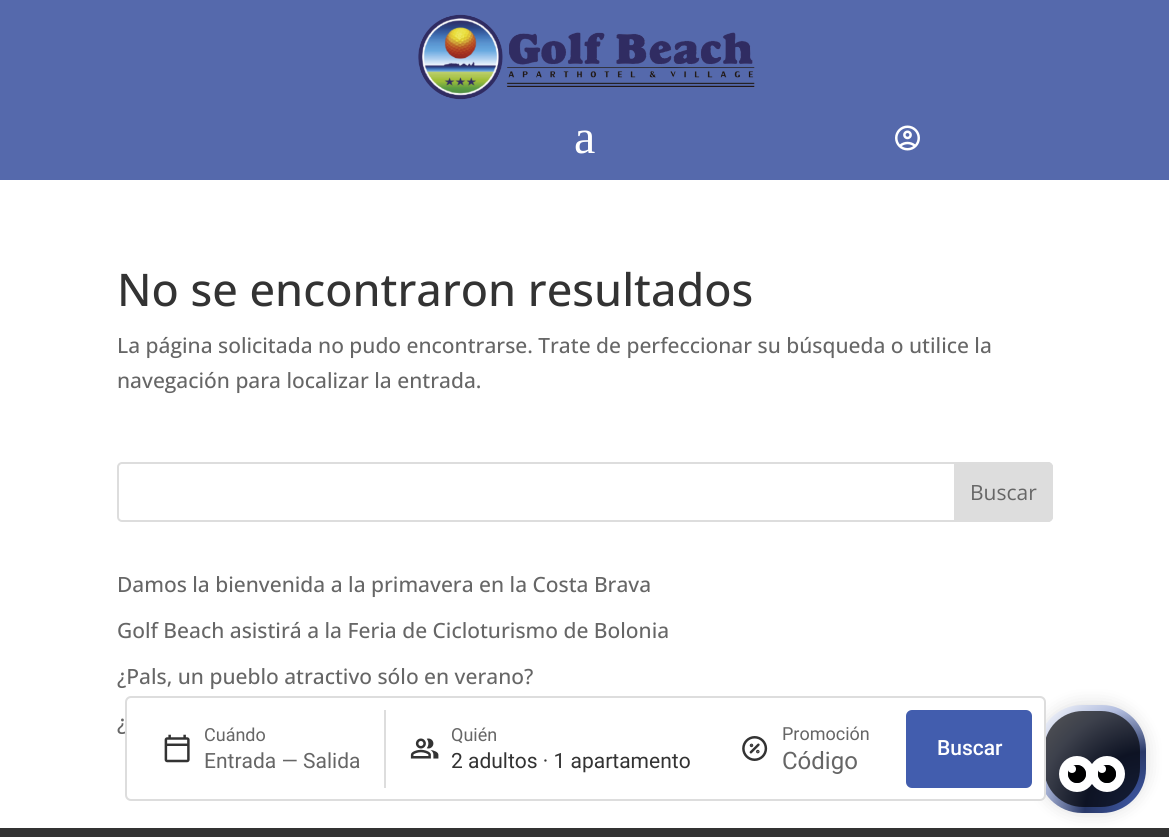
#include <cairo.h>
#include <math.h>
#include <stddef.h>

static cairo_t *ctx;

static void use_color(int r, int g, int b) {
    cairo_set_source_rgb(ctx, r / 255.0, g / 255.0, b / 255.0);
}

static void round_rect(double x, double y, double w, double h, double r) {
    cairo_new_sub_path(ctx);
    cairo_arc(ctx, x + w - r, y + h - r, r, 0, M_PI / 2);
    cairo_arc(ctx, x + r, y + h - r, r, M_PI / 2, M_PI);
    cairo_arc(ctx, x + r, y + r, r, M_PI, 1.5 * M_PI);
    cairo_arc(ctx, x + w - r, y + r, r, 1.5 * M_PI, 2 * M_PI);
    cairo_close_path(ctx);
}

static void shadow(double x, double y, double w, double h, double r, double blur, double alpha) {
    cairo_push_group_with_content(ctx, CAIRO_CONTENT_ALPHA);
    cairo_set_operator(ctx, CAIRO_OPERATOR_SOURCE);
    for (int i = 15; i >= -15 && fmin(w, h) + blur * i / 3 > 0; i -= 2) {
        double e = blur * i / 6;
        cairo_set_source_rgba(ctx, 0, 0, 0, alpha * erfc((i - 1) / 8.5) / 2);
        round_rect(x - e, y - e, w + 2 * e, h + 2 * e, fmax(0, fmin(r + e + blur * .6, fmin(w, h) / 2 + e)));
        cairo_fill(ctx);
    }
    cairo_pattern_t *soft = cairo_pop_group(ctx);
    cairo_mask(ctx, soft);
    cairo_pattern_destroy(soft);
}

static void picture(const char *path, double x, double y, double w, double h) {
    cairo_surface_t *image = cairo_image_surface_create_from_png(path);
    cairo_save(ctx);
    cairo_set_source_surface(ctx, image, x, y);
    cairo_rectangle(ctx, x, y, w, h);
    cairo_fill(ctx);
    cairo_restore(ctx);
    cairo_surface_destroy(image);
}

int main(void) {
    cairo_surface_t *surface = cairo_image_surface_create(CAIRO_FORMAT_RGB24, 1169, 837);
    ctx = cairo_create(surface);
    cairo_font_options_t *options = cairo_font_options_create();
    cairo_font_options_set_hint_metrics(options, CAIRO_HINT_METRICS_OFF);
    cairo_font_options_set_hint_style(options, CAIRO_HINT_STYLE_NONE);
    cairo_set_font_options(ctx, options);
    cairo_set_miter_limit(ctx, 4);
    cairo_pattern_t *gradient;
    use_color(255, 255, 255);
    cairo_paint(ctx);
    use_color(85, 105, 172);
    cairo_rectangle(ctx, 0, 0, 1169, 180);
    cairo_fill(ctx);
    picture("img1.png", 418, 14, 337, 86);
    cairo_select_font_face(ctx, "Liberation Serif", CAIRO_FONT_SLANT_NORMAL, CAIRO_FONT_WEIGHT_NORMAL);
    cairo_set_font_size(ctx, 48);
    use_color(255, 255, 255);
    cairo_move_to(ctx, 574, 153);
    cairo_show_text(ctx, "a");
    picture("img2.png", 895, 125, 25, 26);
    cairo_select_font_face(ctx, "Open Sans Medium", CAIRO_FONT_SLANT_NORMAL, CAIRO_FONT_WEIGHT_NORMAL);
    cairo_set_font_size(ctx, 45);
    use_color(51, 51, 51);
    cairo_move_to(ctx, 117, 306);
    cairo_show_text(ctx, "No se encontraron resultados");
    cairo_set_font_size(ctx, 21);
    use_color(102, 102, 102);
    cairo_move_to(ctx, 117, 353);
    cairo_show_text(ctx, "La página solicitada no pudo encontrarse. Trate de perfeccionar su búsqueda o utilice la");
    cairo_move_to(ctx, 117, 388);
    cairo_show_text(ctx, "navegación para localizar la entrada.");
    round_rect(118, 463, 934, 58, 4);
    use_color(221, 221, 221);
    cairo_stroke(ctx);
    cairo_new_path(ctx);
    cairo_move_to(ctx, 955, 463);
    cairo_line_to(ctx, 1048, 463);
    cairo_curve_to(ctx, 1050, 463, 1052, 465, 1052, 467);
    cairo_line_to(ctx, 1052, 517);
    cairo_curve_to(ctx, 1052, 519, 1050, 521, 1048, 521);
    cairo_line_to(ctx, 955, 521);
    cairo_close_path(ctx);
    cairo_fill_preserve(ctx);
    cairo_stroke(ctx);
    cairo_select_font_face(ctx, "Open Sans", CAIRO_FONT_SLANT_NORMAL, CAIRO_FONT_WEIGHT_NORMAL);
    use_color(102, 102, 102);
    cairo_move_to(ctx, 970, 500);
    cairo_show_text(ctx, "Buscar");
    cairo_select_font_face(ctx, "Open Sans Medium", CAIRO_FONT_SLANT_NORMAL, CAIRO_FONT_WEIGHT_NORMAL);
    cairo_move_to(ctx, 117, 592);
    cairo_show_text(ctx, "Damos la bienvenida a la primavera en la Costa Brava");
    cairo_move_to(ctx, 117, 638);
    cairo_show_text(ctx, "Golf Beach asistirá a la Feria de Cicloturismo de Bolonia");
    cairo_move_to(ctx, 117, 684);
    cairo_show_text(ctx, "¿Pals, un pueblo atractivo sólo en verano?");
    cairo_move_to(ctx, 117, 730);
    cairo_show_text(ctx, "¿");
    use_color(51, 51, 51);
    cairo_rectangle(ctx, 0, 828, 1169, 9);
    cairo_fill(ctx);
    use_color(0, 0, 0);
    shadow(1038, 705, 108, 108, 44, 9, 0.15);
    gradient = cairo_pattern_create_radial(1146, 813, 0, 1146, 813, 153);
    cairo_pattern_add_color_stop_rgba(gradient, 0, 0.259, 0.365, 0.682, 1);
    cairo_pattern_add_color_stop_rgba(gradient, 0.4, 0.157, 0.22, 0.408, 1);
    cairo_pattern_add_color_stop_rgba(gradient, 0.7, 0.702, 0.745, 0.875, 1);
    cairo_pattern_add_color_stop_rgba(gradient, 0.9, 0.925, 0.937, 0.969, 1);
    cairo_set_source(ctx, gradient);
    cairo_pattern_destroy(gradient);
    round_rect(1038, 705, 108, 108, 44);
    cairo_fill(ctx);
    cairo_set_source_rgba(ctx, 0, 0, 0, 0.66);
    round_rect(1044, 711, 96, 96, 39);
    cairo_fill(ctx);
    use_color(255, 255, 255);
    round_rect(126, 697, 919, 103, 5);
    cairo_fill_preserve(ctx);
    use_color(221, 221, 221);
    cairo_stroke(ctx);
    picture("img3.png", 164, 734, 26, 29);
    cairo_select_font_face(ctx, "Roboto", CAIRO_FONT_SLANT_NORMAL, CAIRO_FONT_WEIGHT_NORMAL);
    cairo_set_font_size(ctx, 18);
    use_color(102, 102, 102);
    cairo_move_to(ctx, 204, 741);
    cairo_show_text(ctx, "Cuándo");
    cairo_set_font_size(ctx, 21);
    cairo_move_to(ctx, 204, 768);
    cairo_show_text(ctx, "Entrada — Salida");
    use_color(221, 221, 221);
    cairo_rectangle(ctx, 384, 710, 2, 78);
    cairo_fill(ctx);
    picture("img4.png", 410, 738, 29, 21);
    cairo_set_font_size(ctx, 18);
    use_color(102, 102, 102);
    cairo_move_to(ctx, 451, 741);
    cairo_show_text(ctx, "Quién");
    cairo_set_font_size(ctx, 21);
    use_color(51, 51, 51);
    cairo_move_to(ctx, 451, 768);
    cairo_show_text(ctx, "2 adultos · 1 apartamento");
    picture("img5.png", 742, 736, 26, 25);
    cairo_set_font_size(ctx, 18);
    use_color(102, 102, 102);
    cairo_move_to(ctx, 782, 740);
    cairo_show_text(ctx, "Promoción");
    cairo_set_font_size(ctx, 24);
    cairo_move_to(ctx, 782, 769);
    cairo_show_text(ctx, "Código");
    use_color(66, 93, 174);
    round_rect(906, 710, 126, 78, 6);
    cairo_fill(ctx);
    cairo_select_font_face(ctx, "Roboto Medium", CAIRO_FONT_SLANT_NORMAL, CAIRO_FONT_WEIGHT_NORMAL);
    cairo_set_font_size(ctx, 21);
    use_color(255, 255, 255);
    cairo_move_to(ctx, 937, 755);
    cairo_show_text(ctx, "Buscar");
    cairo_new_path(ctx);
    cairo_arc(ctx, 1077, 774, 13.5, 0, 2 * M_PI);
    cairo_set_line_width(ctx, 9);
    cairo_stroke(ctx);
    use_color(0, 0, 0);
    cairo_arc(ctx, 1077, 774, 9, 0, 2 * M_PI);
    cairo_fill(ctx);
    use_color(255, 255, 255);
    cairo_arc(ctx, 1072, 769, 4, 0, 2 * M_PI);
    cairo_fill(ctx);
    cairo_arc(ctx, 1107, 774, 13.5, 0, 2 * M_PI);
    cairo_stroke(ctx);
    use_color(0, 0, 0);
    cairo_arc(ctx, 1107, 774, 9, 0, 2 * M_PI);
    cairo_fill(ctx);
    use_color(255, 255, 255);
    cairo_arc(ctx, 1102, 769, 4, 0, 2 * M_PI);
    cairo_fill(ctx);
    cairo_surface_write_to_png(surface, "result.png");
    cairo_font_options_destroy(options);
    cairo_destroy(ctx);
    cairo_surface_destroy(surface);
    return 0;
}
